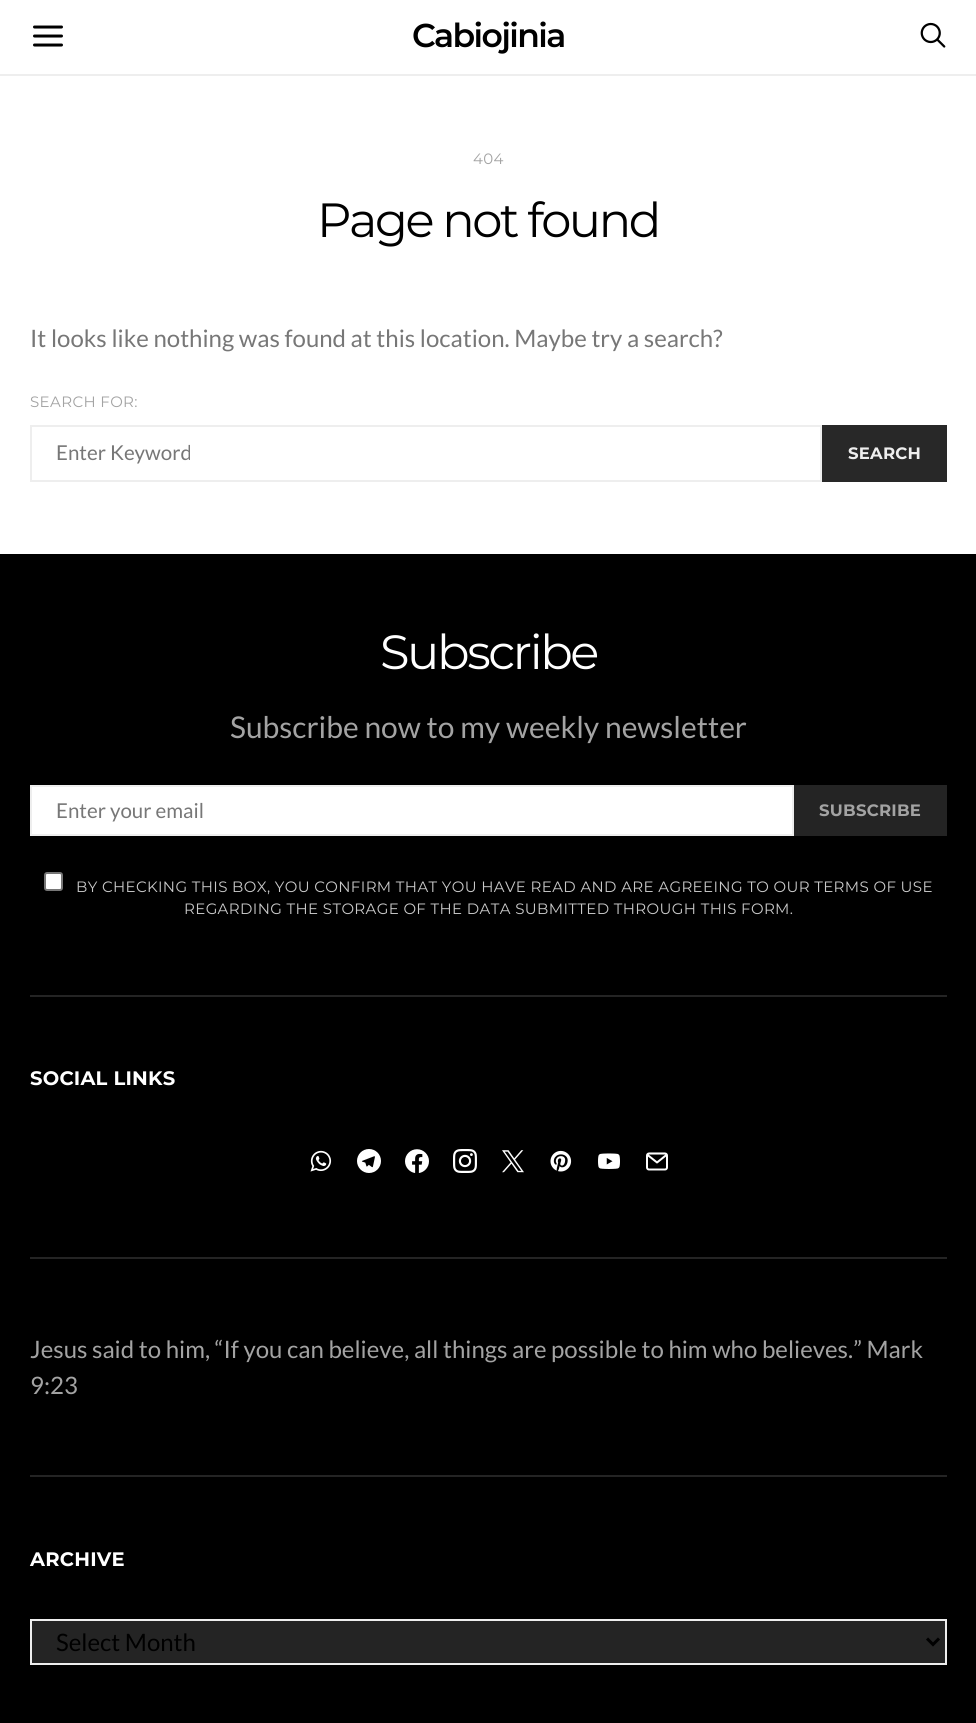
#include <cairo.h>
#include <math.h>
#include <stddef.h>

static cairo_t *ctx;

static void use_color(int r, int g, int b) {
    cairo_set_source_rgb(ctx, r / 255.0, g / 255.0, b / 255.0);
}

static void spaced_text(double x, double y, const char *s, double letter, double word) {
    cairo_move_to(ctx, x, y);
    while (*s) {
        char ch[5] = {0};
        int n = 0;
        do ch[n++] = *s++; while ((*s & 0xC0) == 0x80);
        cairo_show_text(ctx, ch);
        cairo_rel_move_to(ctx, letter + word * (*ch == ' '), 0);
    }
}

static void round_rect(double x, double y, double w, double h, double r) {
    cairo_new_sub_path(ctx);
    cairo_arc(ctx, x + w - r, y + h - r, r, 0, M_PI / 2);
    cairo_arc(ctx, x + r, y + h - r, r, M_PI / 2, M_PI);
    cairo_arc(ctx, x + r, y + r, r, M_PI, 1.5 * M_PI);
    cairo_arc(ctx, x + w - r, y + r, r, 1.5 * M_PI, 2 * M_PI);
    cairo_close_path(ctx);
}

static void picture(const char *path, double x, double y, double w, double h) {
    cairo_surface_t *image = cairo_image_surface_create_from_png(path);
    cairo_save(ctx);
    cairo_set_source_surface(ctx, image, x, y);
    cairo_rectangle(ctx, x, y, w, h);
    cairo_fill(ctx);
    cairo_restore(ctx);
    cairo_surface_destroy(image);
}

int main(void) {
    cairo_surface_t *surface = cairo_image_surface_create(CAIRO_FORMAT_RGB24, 976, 1723);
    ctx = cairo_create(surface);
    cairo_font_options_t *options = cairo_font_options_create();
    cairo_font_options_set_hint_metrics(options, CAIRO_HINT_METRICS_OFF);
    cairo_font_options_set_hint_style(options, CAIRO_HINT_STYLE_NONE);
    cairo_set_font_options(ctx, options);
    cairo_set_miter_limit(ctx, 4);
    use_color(255, 255, 255);
    cairo_paint(ctx);
    use_color(238, 238, 238);
    cairo_rectangle(ctx, 0, 74, 976, 2);
    cairo_fill(ctx);
    picture("img1.png", 33, 25, 30, 22);
    cairo_select_font_face(ctx, "Montserrat SemiBold", CAIRO_FONT_SLANT_NORMAL, CAIRO_FONT_WEIGHT_NORMAL);
    cairo_set_font_size(ctx, 33);
    use_color(0, 0, 0);
    spaced_text(412, 47, "Cabiojinia", -1.6, 0);
    picture("img2.png", 920, 22, 26, 26);
    cairo_select_font_face(ctx, "Montserrat", CAIRO_FONT_SLANT_NORMAL, CAIRO_FONT_WEIGHT_NORMAL);
    cairo_set_font_size(ctx, 15);
    use_color(163, 163, 163);
    spaced_text(473, 164, "404", 0.38, 0);
    cairo_set_font_size(ctx, 48);
    use_color(0, 0, 0);
    spaced_text(317, 237, "Page not found", -2.4, 0);
    cairo_select_font_face(ctx, "Lato", CAIRO_FONT_SLANT_NORMAL, CAIRO_FONT_WEIGHT_NORMAL);
    cairo_set_font_size(ctx, 24);
    use_color(119, 119, 119);
    cairo_move_to(ctx, 30, 347);
    cairo_show_text(ctx, "It looks like nothing was found at this location. Maybe try a search?");
    cairo_select_font_face(ctx, "Montserrat", CAIRO_FONT_SLANT_NORMAL, CAIRO_FONT_WEIGHT_NORMAL);
    cairo_set_font_size(ctx, 15);
    use_color(163, 163, 163);
    spaced_text(30, 407, "SEARCH FOR:", 0.38, 0);
    cairo_rectangle(ctx, 31, 426, 790, 55);
    use_color(238, 238, 238);
    cairo_stroke(ctx);
    cairo_select_font_face(ctx, "Lato", CAIRO_FONT_SLANT_NORMAL, CAIRO_FONT_WEIGHT_NORMAL);
    cairo_set_font_size(ctx, 20.5);
    use_color(119, 119, 119);
    cairo_move_to(ctx, 56, 460);
    cairo_show_text(ctx, "Enter Keyword");
    use_color(40, 40, 40);
    cairo_rectangle(ctx, 822, 425, 125, 57);
    cairo_fill(ctx);
    cairo_select_font_face(ctx, "Montserrat", CAIRO_FONT_SLANT_NORMAL, CAIRO_FONT_WEIGHT_BOLD);
    cairo_set_font_size(ctx, 16.5);
    use_color(238, 238, 238);
    spaced_text(848, 459, "SEARCH", 0.25, 0);
    use_color(0, 0, 0);
    cairo_rectangle(ctx, 0, 554, 976, 1169);
    cairo_fill(ctx);
    cairo_select_font_face(ctx, "Montserrat", CAIRO_FONT_SLANT_NORMAL, CAIRO_FONT_WEIGHT_NORMAL);
    cairo_set_font_size(ctx, 48);
    use_color(255, 255, 255);
    spaced_text(380, 669, "Subscribe", -2.4, 0);
    cairo_select_font_face(ctx, "Lato", CAIRO_FONT_SLANT_NORMAL, CAIRO_FONT_WEIGHT_NORMAL);
    cairo_set_font_size(ctx, 30);
    use_color(163, 163, 163);
    cairo_move_to(ctx, 230, 738);
    cairo_show_text(ctx, "Subscribe now to my weekly newsletter");
    use_color(255, 255, 255);
    cairo_rectangle(ctx, 31, 786, 762, 49);
    cairo_fill_preserve(ctx);
    use_color(238, 238, 238);
    cairo_stroke(ctx);
    cairo_set_font_size(ctx, 20.5);
    use_color(119, 119, 119);
    cairo_move_to(ctx, 56, 818);
    cairo_show_text(ctx, "Enter your email");
    use_color(36, 36, 36);
    cairo_rectangle(ctx, 794, 785, 153, 51);
    cairo_fill(ctx);
    cairo_select_font_face(ctx, "Montserrat", CAIRO_FONT_SLANT_NORMAL, CAIRO_FONT_WEIGHT_BOLD);
    cairo_set_font_size(ctx, 16.5);
    use_color(163, 163, 163);
    spaced_text(819, 816, "SUBSCRIBE", 0.25, 0);
    use_color(255, 255, 255);
    round_rect(45, 873, 17, 17, 2);
    cairo_fill_preserve(ctx);
    use_color(118, 118, 118);
    cairo_stroke(ctx);
    cairo_select_font_face(ctx, "Montserrat", CAIRO_FONT_SLANT_NORMAL, CAIRO_FONT_WEIGHT_NORMAL);
    cairo_set_font_size(ctx, 15);
    use_color(201, 201, 201);
    spaced_text(76, 892, "BY CHECKING THIS BOX, YOU CONFIRM THAT YOU HAVE READ AND ARE AGREEING TO OUR TERMS OF USE", 0.38, 0);
    spaced_text(184, 914, "REGARDING THE STORAGE OF THE DATA SUBMITTED THROUGH THIS FORM.", 0.38, 0);
    use_color(36, 36, 36);
    cairo_rectangle(ctx, 30, 995, 917, 2);
    cairo_fill(ctx);
    cairo_select_font_face(ctx, "Montserrat", CAIRO_FONT_SLANT_NORMAL, CAIRO_FONT_WEIGHT_BOLD);
    cairo_set_font_size(ctx, 19.5);
    use_color(255, 255, 255);
    spaced_text(30, 1085, "SOCIAL LINKS", 0.25, 0);
    picture("img3.png", 310, 1150, 22, 22);
    picture("img4.png", 357, 1149, 24, 24);
    picture("img5.png", 405, 1149, 24, 24);
    picture("img6.png", 453, 1149, 24, 24);
    picture("img7.png", 502, 1150, 22, 23);
    picture("img8.png", 550, 1150, 22, 22);
    picture("img9.png", 598, 1153, 22, 16);
    picture("img10.png", 646, 1152, 22, 19);
    use_color(36, 36, 36);
    cairo_rectangle(ctx, 30, 1257, 917, 2);
    cairo_fill(ctx);
    cairo_select_font_face(ctx, "Lato", CAIRO_FONT_SLANT_NORMAL, CAIRO_FONT_WEIGHT_NORMAL);
    cairo_set_font_size(ctx, 24);
    use_color(163, 163, 163);
    cairo_move_to(ctx, 30, 1358);
    cairo_show_text(ctx, "Jesus said to him, “If you can believe, all things are possible to him who believes.” Mark");
    cairo_move_to(ctx, 30, 1394);
    cairo_show_text(ctx, "9:23");
    use_color(36, 36, 36);
    cairo_rectangle(ctx, 30, 1475, 917, 2);
    cairo_fill(ctx);
    cairo_select_font_face(ctx, "Montserrat", CAIRO_FONT_SLANT_NORMAL, CAIRO_FONT_WEIGHT_BOLD);
    cairo_set_font_size(ctx, 19.5);
    use_color(255, 255, 255);
    spaced_text(30, 1566, "ARCHIVE", 0.25, 0);
    use_color(36, 36, 36);
    cairo_rectangle(ctx, 31, 1620, 915, 44);
    cairo_fill_preserve(ctx);
    use_color(238, 238, 238);
    cairo_stroke(ctx);
    cairo_new_path(ctx);
    cairo_move_to(ctx, 927, 1638.5);
    cairo_line_to(ctx, 933, 1644.5);
    cairo_line_to(ctx, 939, 1638.5);
    use_color(0, 0, 0);
    cairo_set_line_width(ctx, 3);
    cairo_stroke(ctx);
    cairo_select_font_face(ctx, "Lato", CAIRO_FONT_SLANT_NORMAL, CAIRO_FONT_WEIGHT_NORMAL);
    cairo_set_font_size(ctx, 24);
    cairo_move_to(ctx, 56, 1651);
    cairo_show_text(ctx, "Select Month");
    cairo_surface_write_to_png(surface, "result.png");
    cairo_font_options_destroy(options);
    cairo_destroy(ctx);
    cairo_surface_destroy(surface);
    return 0;
}
